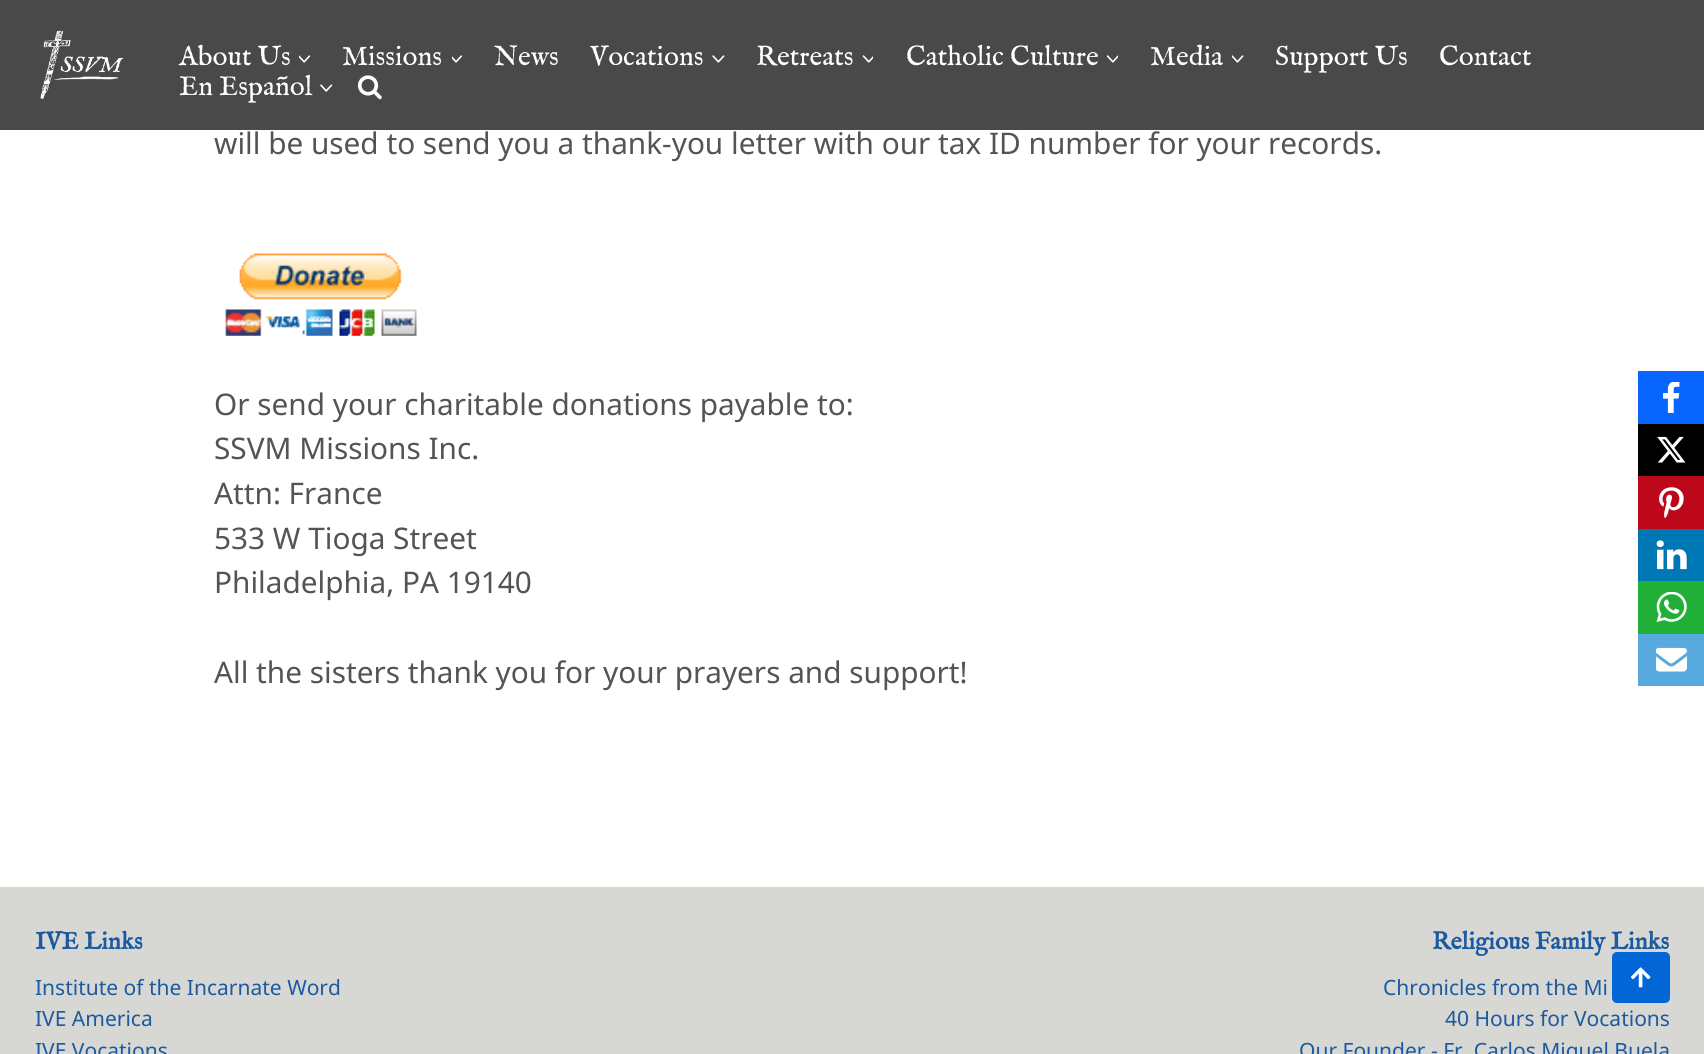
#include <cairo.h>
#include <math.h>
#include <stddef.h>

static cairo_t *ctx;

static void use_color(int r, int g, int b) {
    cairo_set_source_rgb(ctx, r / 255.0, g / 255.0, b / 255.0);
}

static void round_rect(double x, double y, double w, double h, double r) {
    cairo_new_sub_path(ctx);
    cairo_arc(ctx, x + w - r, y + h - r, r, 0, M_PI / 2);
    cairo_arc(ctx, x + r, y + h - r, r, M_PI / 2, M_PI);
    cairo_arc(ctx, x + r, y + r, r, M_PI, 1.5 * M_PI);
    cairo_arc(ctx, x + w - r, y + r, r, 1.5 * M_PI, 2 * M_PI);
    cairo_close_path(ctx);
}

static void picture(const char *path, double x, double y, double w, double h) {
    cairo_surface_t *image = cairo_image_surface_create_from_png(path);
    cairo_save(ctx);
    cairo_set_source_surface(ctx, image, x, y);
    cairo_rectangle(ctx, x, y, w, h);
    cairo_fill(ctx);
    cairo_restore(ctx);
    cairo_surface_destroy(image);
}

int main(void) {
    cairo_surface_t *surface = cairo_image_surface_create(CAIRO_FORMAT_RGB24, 1704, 1054);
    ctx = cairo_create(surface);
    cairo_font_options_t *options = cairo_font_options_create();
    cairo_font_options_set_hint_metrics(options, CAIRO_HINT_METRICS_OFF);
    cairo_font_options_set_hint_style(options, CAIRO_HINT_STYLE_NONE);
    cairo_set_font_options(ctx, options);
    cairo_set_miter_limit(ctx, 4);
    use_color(255, 255, 255);
    cairo_paint(ctx);
    use_color(73, 73, 73);
    cairo_rectangle(ctx, 0, 0, 1704, 130);
    cairo_fill(ctx);
    picture("img1.png", 40, 30, 84, 69);
    cairo_select_font_face(ctx, "IM FELL English", CAIRO_FONT_SLANT_NORMAL, CAIRO_FONT_WEIGHT_NORMAL);
    cairo_set_font_size(ctx, 27.75);
    use_color(255, 255, 255);
    cairo_move_to(ctx, 179, 65);
    cairo_show_text(ctx, "About Us");
    picture("img2.png", 299, 55, 12, 8);
    cairo_move_to(ctx, 342, 65);
    cairo_show_text(ctx, "Missions");
    picture("img3.png", 452, 55, 11, 8);
    cairo_move_to(ctx, 494, 65);
    cairo_show_text(ctx, "News");
    cairo_move_to(ctx, 590, 65);
    cairo_show_text(ctx, "Vocations");
    picture("img4.png", 712, 55, 13, 8);
    cairo_move_to(ctx, 756, 65);
    cairo_show_text(ctx, "Retreats");
    picture("img5.png", 862, 55, 11, 8);
    cairo_move_to(ctx, 906, 65);
    cairo_show_text(ctx, "Catholic Culture");
    picture("img6.png", 1106, 55, 12, 8);
    cairo_move_to(ctx, 1150, 65);
    cairo_show_text(ctx, "Media");
    picture("img7.png", 1232, 55, 12, 8);
    cairo_move_to(ctx, 1275, 65);
    cairo_show_text(ctx, "Support Us");
    cairo_move_to(ctx, 1439, 65);
    cairo_show_text(ctx, "Contact");
    cairo_move_to(ctx, 179, 95);
    cairo_show_text(ctx, "En Español");
    picture("img8.png", 320, 84, 13, 8);
    picture("img9.png", 357, 75, 25, 25);
    cairo_select_font_face(ctx, "Noto Sans", CAIRO_FONT_SLANT_NORMAL, CAIRO_FONT_WEIGHT_NORMAL);
    cairo_set_font_size(ctx, 29.75);
    use_color(84, 84, 84);
    cairo_move_to(ctx, 214, 154);
    cairo_show_text(ctx, "will be used to send you a thank-you letter with our tax ID number for your records.");
    picture("img10.png", 225, 253, 192, 83);
    cairo_move_to(ctx, 214, 415);
    cairo_show_text(ctx, "Or send your charitable donations payable to:");
    cairo_move_to(ctx, 214, 459);
    cairo_show_text(ctx, "SSVM Missions Inc.");
    cairo_move_to(ctx, 214, 504);
    cairo_show_text(ctx, "Attn: France");
    cairo_move_to(ctx, 214, 549);
    cairo_show_text(ctx, "533 W Tioga Street");
    cairo_move_to(ctx, 214, 593);
    cairo_show_text(ctx, "Philadelphia, PA 19140");
    cairo_move_to(ctx, 214, 683);
    cairo_show_text(ctx, "All the sisters thank you for your prayers and support!");
    use_color(215, 216, 212);
    cairo_rectangle(ctx, 0, 887, 1704, 167);
    cairo_fill(ctx);
    cairo_select_font_face(ctx, "IM FELL English", CAIRO_FONT_SLANT_NORMAL, CAIRO_FONT_WEIGHT_BOLD);
    cairo_set_font_size(ctx, 24.5);
    use_color(27, 89, 160);
    cairo_move_to(ctx, 35, 949);
    cairo_show_text(ctx, "IVE Links");
    cairo_select_font_face(ctx, "Noto Sans", CAIRO_FONT_SLANT_NORMAL, CAIRO_FONT_WEIGHT_NORMAL);
    cairo_set_font_size(ctx, 21);
    cairo_move_to(ctx, 35, 995);
    cairo_show_text(ctx, "Institute of the Incarnate Word");
    cairo_move_to(ctx, 35, 1026);
    cairo_show_text(ctx, "IVE America");
    cairo_move_to(ctx, 35, 1058);
    cairo_show_text(ctx, "IVE Vocations");
    cairo_select_font_face(ctx, "IM FELL English", CAIRO_FONT_SLANT_NORMAL, CAIRO_FONT_WEIGHT_BOLD);
    cairo_set_font_size(ctx, 24.5);
    cairo_move_to(ctx, 1432, 949);
    cairo_show_text(ctx, "Religious Family Links");
    cairo_select_font_face(ctx, "Noto Sans", CAIRO_FONT_SLANT_NORMAL, CAIRO_FONT_WEIGHT_NORMAL);
    cairo_set_font_size(ctx, 21);
    cairo_move_to(ctx, 1383, 995);
    cairo_show_text(ctx, "Chronicles from the Mi");
    cairo_move_to(ctx, 1445, 1026);
    cairo_show_text(ctx, "40 Hours for Vocations");
    cairo_move_to(ctx, 1299, 1058);
    cairo_show_text(ctx, "Our Founder - Fr. Carlos Miguel Buela");
    use_color(3, 102, 214);
    round_rect(1612, 952, 58, 51, 5);
    cairo_fill(ctx);
    picture("img11.png", 1631, 967, 20, 21);
    use_color(8, 102, 255);
    cairo_rectangle(ctx, 1638, 371, 66, 53);
    cairo_fill(ctx);
    picture("img12.png", 1663, 382, 17, 31);
    use_color(0, 0, 0);
    cairo_rectangle(ctx, 1638, 424, 66, 52);
    cairo_fill(ctx);
    picture("img13.png", 1657, 436, 29, 27);
    use_color(189, 8, 28);
    cairo_rectangle(ctx, 1638, 476, 66, 53);
    cairo_fill(ctx);
    picture("img14.png", 1659, 487, 25, 31);
    use_color(0, 119, 181);
    cairo_rectangle(ctx, 1638, 529, 66, 52);
    cairo_fill(ctx);
    picture("img15.png", 1656, 540, 31, 30);
    use_color(32, 176, 56);
    cairo_rectangle(ctx, 1638, 581, 66, 53);
    cairo_fill(ctx);
    picture("img16.png", 1656, 592, 31, 30);
    use_color(88, 169, 222);
    cairo_rectangle(ctx, 1638, 634, 66, 52);
    cairo_fill(ctx);
    picture("img17.png", 1656, 647, 31, 25);
    cairo_surface_write_to_png(surface, "result.png");
    cairo_font_options_destroy(options);
    cairo_destroy(ctx);
    cairo_surface_destroy(surface);
    return 0;
}
